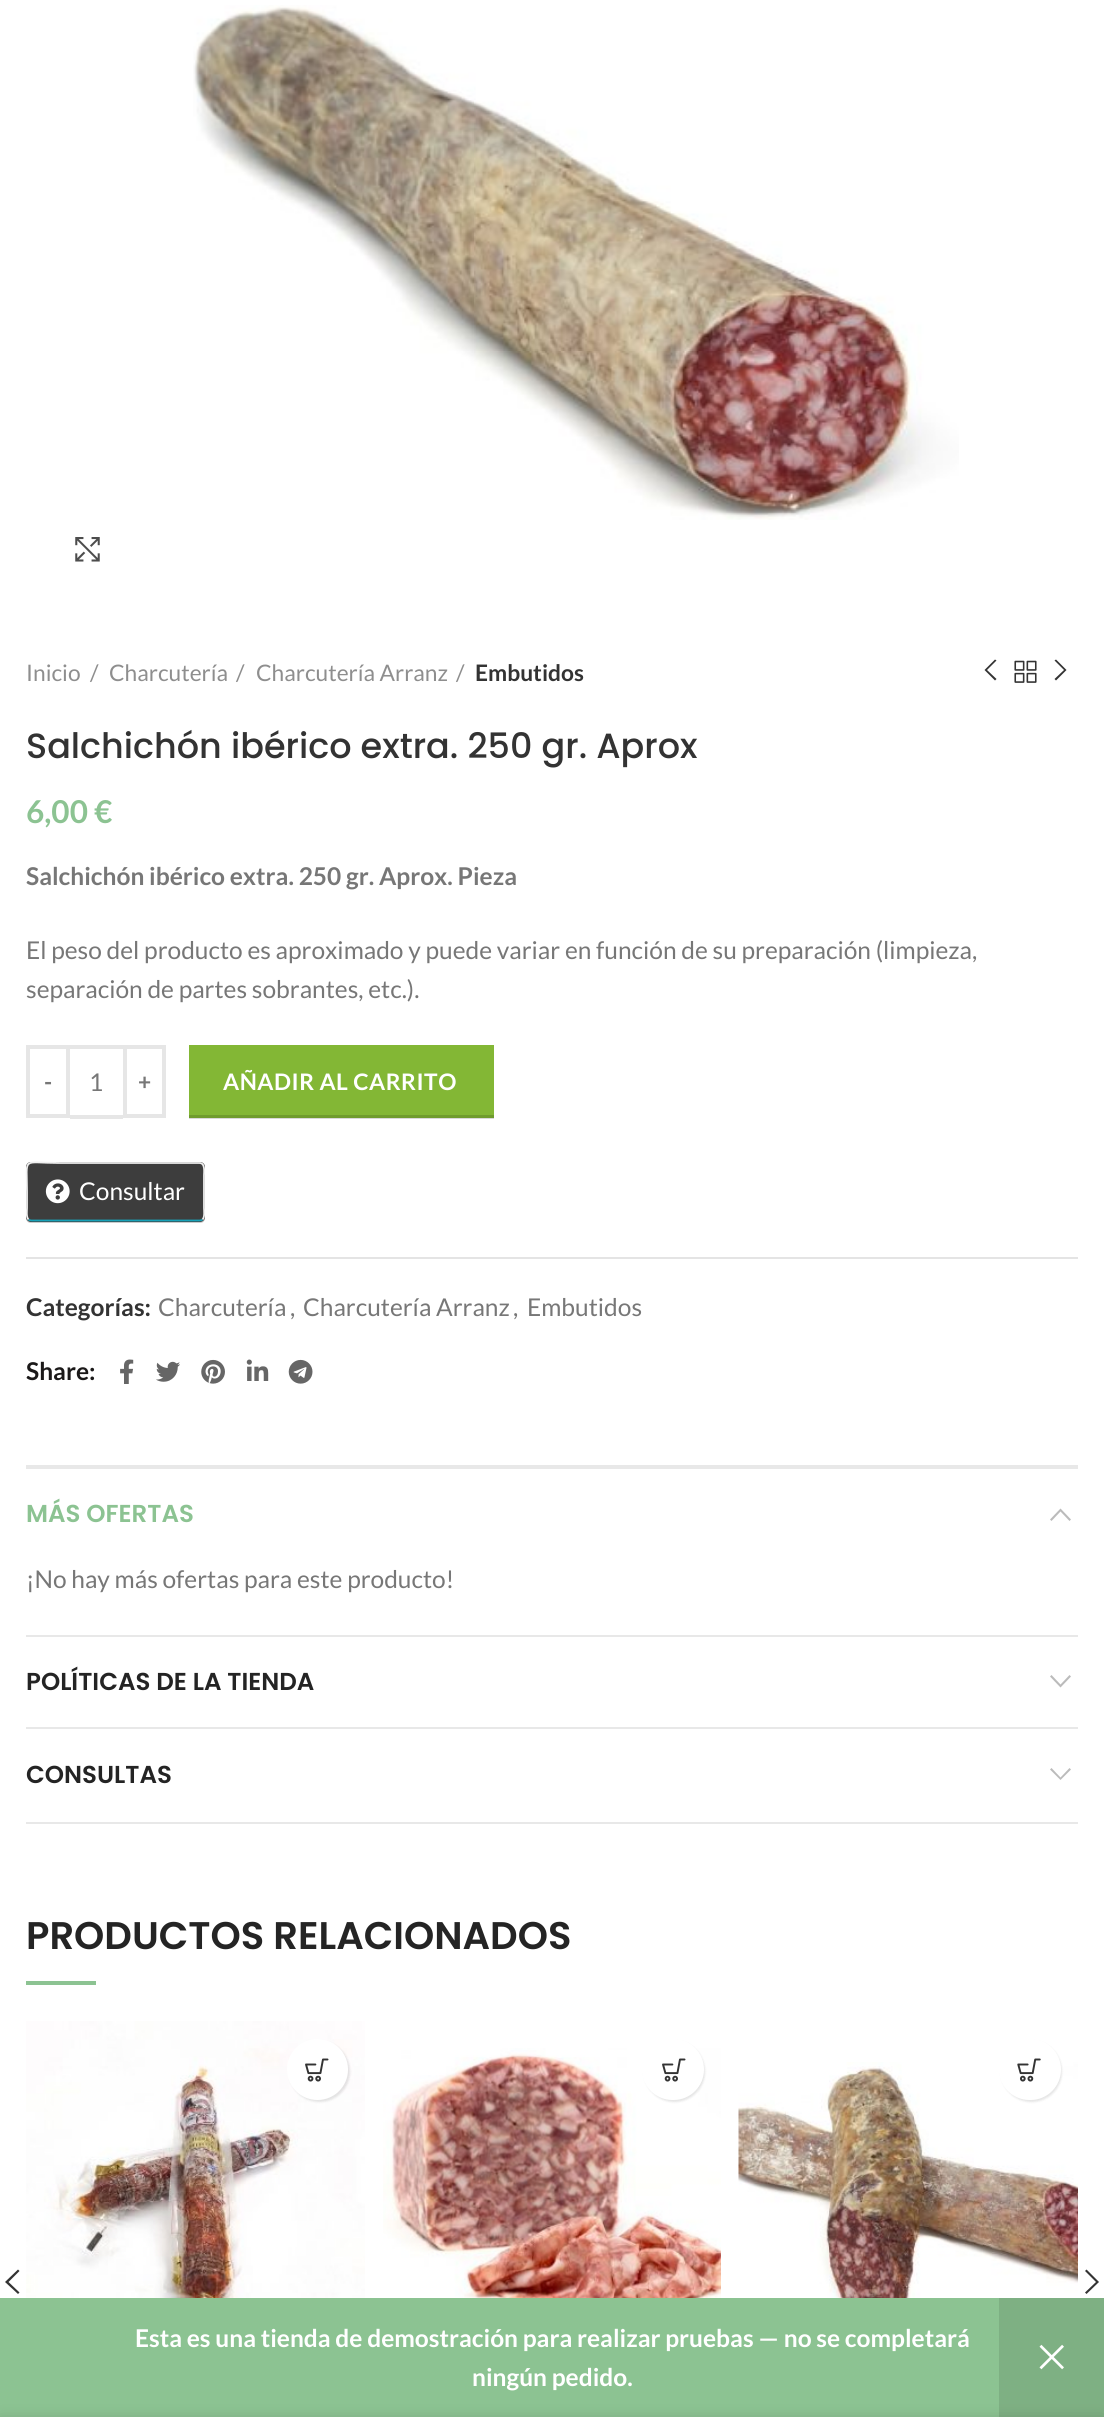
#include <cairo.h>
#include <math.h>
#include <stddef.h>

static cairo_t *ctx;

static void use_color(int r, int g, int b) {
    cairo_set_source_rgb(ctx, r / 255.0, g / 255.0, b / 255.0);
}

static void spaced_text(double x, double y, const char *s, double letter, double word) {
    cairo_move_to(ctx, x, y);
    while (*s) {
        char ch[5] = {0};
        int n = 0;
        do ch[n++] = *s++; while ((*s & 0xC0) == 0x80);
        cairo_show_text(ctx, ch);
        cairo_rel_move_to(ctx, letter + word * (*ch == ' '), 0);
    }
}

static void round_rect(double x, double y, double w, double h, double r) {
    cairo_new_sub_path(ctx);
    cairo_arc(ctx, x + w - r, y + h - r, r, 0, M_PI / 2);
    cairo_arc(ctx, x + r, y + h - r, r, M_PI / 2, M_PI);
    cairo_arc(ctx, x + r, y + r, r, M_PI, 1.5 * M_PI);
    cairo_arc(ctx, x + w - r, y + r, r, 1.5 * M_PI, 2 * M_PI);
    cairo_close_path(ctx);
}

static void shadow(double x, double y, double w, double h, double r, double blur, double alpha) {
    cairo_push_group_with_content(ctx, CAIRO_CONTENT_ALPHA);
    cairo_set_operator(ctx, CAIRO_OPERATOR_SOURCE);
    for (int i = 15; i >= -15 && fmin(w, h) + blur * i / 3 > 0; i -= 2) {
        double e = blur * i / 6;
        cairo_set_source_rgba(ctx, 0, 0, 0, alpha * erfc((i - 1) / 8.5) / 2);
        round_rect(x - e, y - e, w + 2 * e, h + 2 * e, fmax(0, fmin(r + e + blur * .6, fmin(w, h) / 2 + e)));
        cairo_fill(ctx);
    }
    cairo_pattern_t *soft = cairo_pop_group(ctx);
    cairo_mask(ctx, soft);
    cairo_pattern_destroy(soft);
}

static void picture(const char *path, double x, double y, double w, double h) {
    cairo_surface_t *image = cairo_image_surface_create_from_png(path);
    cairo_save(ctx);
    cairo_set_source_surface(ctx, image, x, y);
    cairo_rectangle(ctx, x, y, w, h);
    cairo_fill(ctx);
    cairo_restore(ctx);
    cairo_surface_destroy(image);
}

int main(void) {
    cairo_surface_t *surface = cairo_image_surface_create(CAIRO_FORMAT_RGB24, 1104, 2417);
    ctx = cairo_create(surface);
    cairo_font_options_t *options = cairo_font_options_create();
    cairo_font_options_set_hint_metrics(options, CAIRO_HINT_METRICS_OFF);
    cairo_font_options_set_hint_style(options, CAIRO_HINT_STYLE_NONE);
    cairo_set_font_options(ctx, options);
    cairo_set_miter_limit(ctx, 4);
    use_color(255, 255, 255);
    cairo_paint(ctx);
    use_color(217, 217, 217);
    cairo_rectangle(ctx, 189, 1118, 305, 1);
    cairo_fill(ctx);
    picture("img1.png", 193, 5, 766, 515);
    picture("img2.png", 75, 537, 25, 25);
    cairo_select_font_face(ctx, "Lato", CAIRO_FONT_SLANT_NORMAL, CAIRO_FONT_WEIGHT_NORMAL);
    cairo_set_font_size(ctx, 22.75);
    use_color(142, 142, 142);
    cairo_move_to(ctx, 26, 681);
    cairo_show_text(ctx, "Inicio");
    cairo_move_to(ctx, 90, 681);
    cairo_show_text(ctx, "/");
    cairo_move_to(ctx, 109, 681);
    cairo_show_text(ctx, "Charcutería");
    cairo_move_to(ctx, 236, 681);
    cairo_show_text(ctx, "/");
    cairo_move_to(ctx, 256, 681);
    cairo_show_text(ctx, "Charcutería Arranz");
    cairo_move_to(ctx, 456, 681);
    cairo_show_text(ctx, "/");
    cairo_select_font_face(ctx, "Lato", CAIRO_FONT_SLANT_NORMAL, CAIRO_FONT_WEIGHT_BOLD);
    use_color(51, 51, 51);
    cairo_move_to(ctx, 475, 681);
    cairo_show_text(ctx, "Embutidos");
    cairo_new_path(ctx);
    cairo_move_to(ctx, 996.5, 660.5);
    cairo_line_to(ctx, 987, 670);
    cairo_line_to(ctx, 996.5, 679);
    cairo_line_to(ctx, 995, 680.5);
    cairo_line_to(ctx, 984.5, 670);
    cairo_line_to(ctx, 995, 659.5);
    cairo_close_path(ctx);
    cairo_fill(ctx);
    picture("img3.png", 1014, 660, 23, 23);
    cairo_new_path(ctx);
    cairo_move_to(ctx, 1056, 659.5);
    cairo_line_to(ctx, 1066.5, 670);
    cairo_line_to(ctx, 1056, 680.5);
    cairo_line_to(ctx, 1054.5, 679);
    cairo_line_to(ctx, 1064, 670);
    cairo_line_to(ctx, 1054.5, 660.5);
    cairo_close_path(ctx);
    cairo_fill(ctx);
    cairo_select_font_face(ctx, "Poppins Medium", CAIRO_FONT_SLANT_NORMAL, CAIRO_FONT_WEIGHT_NORMAL);
    cairo_set_font_size(ctx, 35);
    cairo_move_to(ctx, 26, 758);
    cairo_show_text(ctx, "Salchichón ibérico extra. 250 gr. Aprox");
    cairo_select_font_face(ctx, "Lato", CAIRO_FONT_SLANT_NORMAL, CAIRO_FONT_WEIGHT_BOLD);
    cairo_set_font_size(ctx, 31.5);
    use_color(140, 195, 146);
    cairo_move_to(ctx, 26, 823);
    cairo_show_text(ctx, "6,00 €");
    cairo_set_font_size(ctx, 24.5);
    use_color(119, 119, 119);
    cairo_move_to(ctx, 26, 885);
    cairo_show_text(ctx, "Salchichón ibérico extra. 250 gr. Aprox. Pieza");
    cairo_select_font_face(ctx, "Lato", CAIRO_FONT_SLANT_NORMAL, CAIRO_FONT_WEIGHT_NORMAL);
    cairo_move_to(ctx, 26, 959);
    cairo_show_text(ctx, "El peso del producto es aproximado y puede variar en función de su preparación (limpieza,");
    cairo_move_to(ctx, 26, 998);
    cairo_show_text(ctx, "separación de partes sobrantes, etc.).");
    cairo_rectangle(ctx, 28, 1047, 40, 69);
    use_color(230, 230, 230);
    cairo_set_line_width(ctx, 4);
    cairo_stroke(ctx);
    cairo_select_font_face(ctx, "Lato", CAIRO_FONT_SLANT_NORMAL, CAIRO_FONT_WEIGHT_BOLD);
    cairo_set_font_size(ctx, 22.75);
    use_color(119, 119, 119);
    spaced_text(44, 1090, "-", 0.5, 0);
    use_color(230, 230, 230);
    cairo_rectangle(ctx, 70, 1045, 53, 4);
    cairo_fill(ctx);
    cairo_rectangle(ctx, 70, 1115, 53, 4);
    cairo_fill(ctx);
    cairo_select_font_face(ctx, "Lato", CAIRO_FONT_SLANT_NORMAL, CAIRO_FONT_WEIGHT_NORMAL);
    cairo_set_font_size(ctx, 24.5);
    use_color(119, 119, 119);
    cairo_move_to(ctx, 89, 1091);
    cairo_show_text(ctx, "1");
    cairo_rectangle(ctx, 125, 1047, 39, 69);
    use_color(230, 230, 230);
    cairo_stroke(ctx);
    cairo_select_font_face(ctx, "Lato", CAIRO_FONT_SLANT_NORMAL, CAIRO_FONT_WEIGHT_BOLD);
    cairo_set_font_size(ctx, 22.75);
    use_color(119, 119, 119);
    spaced_text(138, 1090, "+", 0.5, 0);
    use_color(131, 183, 53);
    cairo_rectangle(ctx, 189, 1045, 305, 70);
    cairo_fill(ctx);
    use_color(111, 156, 45);
    cairo_rectangle(ctx, 189, 1115, 305, 3);
    cairo_fill(ctx);
    use_color(255, 255, 255);
    spaced_text(223, 1090, "AÑADIR AL CARRITO", 0.5, 0);
    use_color(204, 204, 204);
    cairo_new_path(ctx);
    cairo_move_to(ctx, 26, 1167);
    cairo_line_to(ctx, 26, 1218);
    cairo_curve_to(ctx, 26, 1221, 28, 1223, 31, 1223);
    cairo_line_to(ctx, 200, 1223);
    cairo_curve_to(ctx, 203, 1223, 205, 1221, 205, 1218);
    cairo_line_to(ctx, 205, 1167);
    cairo_line_to(ctx, 205, 1216);
    cairo_curve_to(ctx, 205, 1219, 202, 1222, 200, 1222);
    cairo_line_to(ctx, 32, 1222);
    cairo_curve_to(ctx, 29, 1222, 26, 1219, 26, 1216);
    cairo_close_path(ctx);
    cairo_fill(ctx);
    use_color(61, 61, 61);
    round_rect(26, 1162, 179, 60, 5);
    cairo_fill(ctx);
    cairo_new_path(ctx);
    cairo_move_to(ctx, 202.5, 1219.5);
    cairo_curve_to(ctx, 202, 1220, 200.5, 1220.5, 199.5, 1220.5);
    cairo_line_to(ctx, 31.5, 1220.5);
    cairo_curve_to(ctx, 30.5, 1220.5, 29, 1220, 28.5, 1219.5);
    use_color(23, 162, 184);
    cairo_set_line_width(ctx, 1.8);
    cairo_stroke(ctx);
    cairo_new_path(ctx);
    cairo_move_to(ctx, 28.5, 1219.5);
    cairo_curve_to(ctx, 26, 1217, 27, 1210, 27, 1208);
    cairo_line_to(ctx, 27, 1192);
    cairo_curve_to(ctx, 27, 1155.5, 21, 1163, 59.5, 1163);
    cairo_line_to(ctx, 199.5, 1163);
    cairo_curve_to(ctx, 205.5, 1163, 204, 1172.5, 204, 1175.5);
    cairo_line_to(ctx, 204, 1208);
    cairo_curve_to(ctx, 204, 1210, 205, 1217, 202.5, 1219.5);
    use_color(240, 240, 240);
    cairo_stroke(ctx);
    picture("img4.png", 45, 1179, 25, 25);
    cairo_select_font_face(ctx, "Lato", CAIRO_FONT_SLANT_NORMAL, CAIRO_FONT_WEIGHT_NORMAL);
    cairo_set_font_size(ctx, 24.5);
    use_color(255, 255, 255);
    cairo_move_to(ctx, 79, 1200);
    cairo_show_text(ctx, "Consultar");
    use_color(228, 228, 228);
    cairo_rectangle(ctx, 26, 1257, 1052, 2);
    cairo_fill(ctx);
    cairo_select_font_face(ctx, "Lato", CAIRO_FONT_SLANT_NORMAL, CAIRO_FONT_WEIGHT_BOLD);
    use_color(51, 51, 51);
    cairo_move_to(ctx, 26, 1316);
    cairo_show_text(ctx, "Categorías:");
    cairo_select_font_face(ctx, "Lato", CAIRO_FONT_SLANT_NORMAL, CAIRO_FONT_WEIGHT_NORMAL);
    use_color(119, 119, 119);
    cairo_move_to(ctx, 158, 1316);
    cairo_show_text(ctx, "Charcutería");
    cairo_move_to(ctx, 290, 1316);
    cairo_show_text(ctx, ",");
    cairo_move_to(ctx, 303, 1316);
    cairo_show_text(ctx, "Charcutería Arranz");
    cairo_move_to(ctx, 513, 1316);
    cairo_show_text(ctx, ",");
    cairo_move_to(ctx, 527, 1316);
    cairo_show_text(ctx, "Embutidos");
    cairo_select_font_face(ctx, "Lato", CAIRO_FONT_SLANT_NORMAL, CAIRO_FONT_WEIGHT_BOLD);
    use_color(27, 25, 25);
    cairo_move_to(ctx, 26, 1380);
    cairo_show_text(ctx, "Share:");
    picture("img5.png", 120, 1359, 14, 25);
    picture("img6.png", 156, 1361, 24, 21);
    picture("img7.png", 201, 1359, 24, 25);
    picture("img8.png", 246, 1359, 23, 22);
    picture("img9.png", 288, 1359, 25, 25);
    use_color(232, 232, 232);
    cairo_rectangle(ctx, 26, 1465, 1052, 4);
    cairo_fill(ctx);
    cairo_rectangle(ctx, 26, 1635, 1052, 2);
    cairo_fill(ctx);
    cairo_select_font_face(ctx, "Poppins SemiBold", CAIRO_FONT_SLANT_NORMAL, CAIRO_FONT_WEIGHT_NORMAL);
    use_color(140, 195, 146);
    cairo_move_to(ctx, 26, 1522);
    cairo_show_text(ctx, "MÁS OFERTAS");
    use_color(187, 187, 187);
    cairo_new_path(ctx);
    cairo_move_to(ctx, 1051.5, 1521);
    cairo_line_to(ctx, 1050, 1519.5);
    cairo_line_to(ctx, 1060.5, 1508.5);
    cairo_line_to(ctx, 1071, 1519.5);
    cairo_line_to(ctx, 1069.5, 1521);
    cairo_line_to(ctx, 1060.5, 1511.5);
    cairo_close_path(ctx);
    cairo_fill(ctx);
    cairo_select_font_face(ctx, "Lato", CAIRO_FONT_SLANT_NORMAL, CAIRO_FONT_WEIGHT_NORMAL);
    use_color(119, 119, 119);
    cairo_move_to(ctx, 26, 1588);
    cairo_show_text(ctx, "¡No hay más ofertas para este producto!");
    use_color(232, 232, 232);
    cairo_rectangle(ctx, 26, 1727, 1052, 2);
    cairo_fill(ctx);
    cairo_select_font_face(ctx, "Poppins SemiBold", CAIRO_FONT_SLANT_NORMAL, CAIRO_FONT_WEIGHT_NORMAL);
    use_color(36, 36, 36);
    cairo_move_to(ctx, 26, 1690);
    cairo_show_text(ctx, "POLÍTICAS DE LA TIENDA");
    use_color(187, 187, 187);
    cairo_new_path(ctx);
    cairo_move_to(ctx, 1069.5, 1675);
    cairo_line_to(ctx, 1071, 1676.5);
    cairo_line_to(ctx, 1060.5, 1687.5);
    cairo_line_to(ctx, 1050, 1676.5);
    cairo_line_to(ctx, 1051.5, 1675);
    cairo_line_to(ctx, 1060.5, 1684.5);
    cairo_close_path(ctx);
    cairo_fill(ctx);
    use_color(232, 232, 232);
    cairo_rectangle(ctx, 26, 1822, 1052, 2);
    cairo_fill(ctx);
    use_color(36, 36, 36);
    cairo_move_to(ctx, 26, 1783);
    cairo_show_text(ctx, "CONSULTAS");
    use_color(187, 187, 187);
    cairo_new_path(ctx);
    cairo_move_to(ctx, 1069.5, 1768);
    cairo_line_to(ctx, 1071, 1769.5);
    cairo_line_to(ctx, 1060.5, 1780);
    cairo_line_to(ctx, 1050, 1769.5);
    cairo_line_to(ctx, 1051.5, 1768);
    cairo_line_to(ctx, 1060.5, 1777.5);
    cairo_close_path(ctx);
    cairo_fill(ctx);
    cairo_set_font_size(ctx, 38.5);
    use_color(36, 36, 36);
    cairo_move_to(ctx, 26, 1949);
    cairo_show_text(ctx, "PRODUCTOS RELACIONADOS");
    use_color(140, 195, 146);
    cairo_rectangle(ctx, 26, 1981, 70, 4);
    cairo_fill(ctx);
    picture("img10.png", 26, 2021, 339, 277);
    use_color(0, 0, 0);
    shadow(289, 2041, 61, 61, 30.5, 1, 0.1);
    use_color(255, 255, 255);
    cairo_arc(ctx, 317.5, 2069.5, 30.5, 0, 2 * M_PI);
    cairo_fill(ctx);
    picture("img11.png", 305, 2058, 24, 24);
    picture("img12.png", 383, 2048, 338, 250);
    use_color(0, 0, 0);
    shadow(644, 2041, 61, 61, 30.5, 1, 0.1);
    use_color(255, 255, 255);
    round_rect(642, 2039, 62, 61, 30.5);
    cairo_fill(ctx);
    picture("img11.png", 662, 2058, 24, 24);
    picture("img14.png", 738, 2062, 340, 236);
    use_color(0, 0, 0);
    shadow(1001, 2041, 61, 61, 30.5, 1, 0.1);
    use_color(255, 255, 255);
    round_rect(999, 2039, 62, 61, 30.5);
    cairo_fill(ctx);
    picture("img13.png", 1017, 2058, 24, 24);
    use_color(51, 51, 51);
    cairo_new_path(ctx);
    cairo_move_to(ctx, 19.5, 2271);
    cairo_line_to(ctx, 8.5, 2282);
    cairo_line_to(ctx, 19.5, 2292.5);
    cairo_line_to(ctx, 18, 2294);
    cairo_line_to(ctx, 5, 2282);
    cairo_line_to(ctx, 18, 2269.5);
    cairo_close_path(ctx);
    cairo_fill(ctx);
    cairo_new_path(ctx);
    cairo_move_to(ctx, 1086.5, 2269.5);
    cairo_line_to(ctx, 1099, 2282);
    cairo_line_to(ctx, 1086.5, 2294);
    cairo_line_to(ctx, 1085, 2292.5);
    cairo_line_to(ctx, 1096, 2282);
    cairo_line_to(ctx, 1085, 2271);
    cairo_close_path(ctx);
    cairo_fill(ctx);
    use_color(140, 195, 146);
    cairo_rectangle(ctx, 0, 2298, 999, 119);
    cairo_fill(ctx);
    cairo_select_font_face(ctx, "Lato", CAIRO_FONT_SLANT_NORMAL, CAIRO_FONT_WEIGHT_BOLD);
    cairo_set_font_size(ctx, 24.5);
    use_color(255, 255, 255);
    cairo_move_to(ctx, 135, 2347);
    cairo_show_text(ctx, "Esta es una tienda de demostración para realizar pruebas — no se completará");
    use_color(126, 176, 131);
    cairo_rectangle(ctx, 999, 2298, 105, 119);
    cairo_fill(ctx);
    picture("img15.png", 1039, 2344, 25, 26);
    use_color(255, 255, 255);
    cairo_move_to(ctx, 472, 2386);
    cairo_show_text(ctx, "ningún pedido.");
    use_color(0, 0, 0);
    shadow(0, 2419, 1104, 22, 0, 8, 0.14);
    cairo_surface_write_to_png(surface, "result.png");
    cairo_font_options_destroy(options);
    cairo_destroy(ctx);
    cairo_surface_destroy(surface);
    return 0;
}
